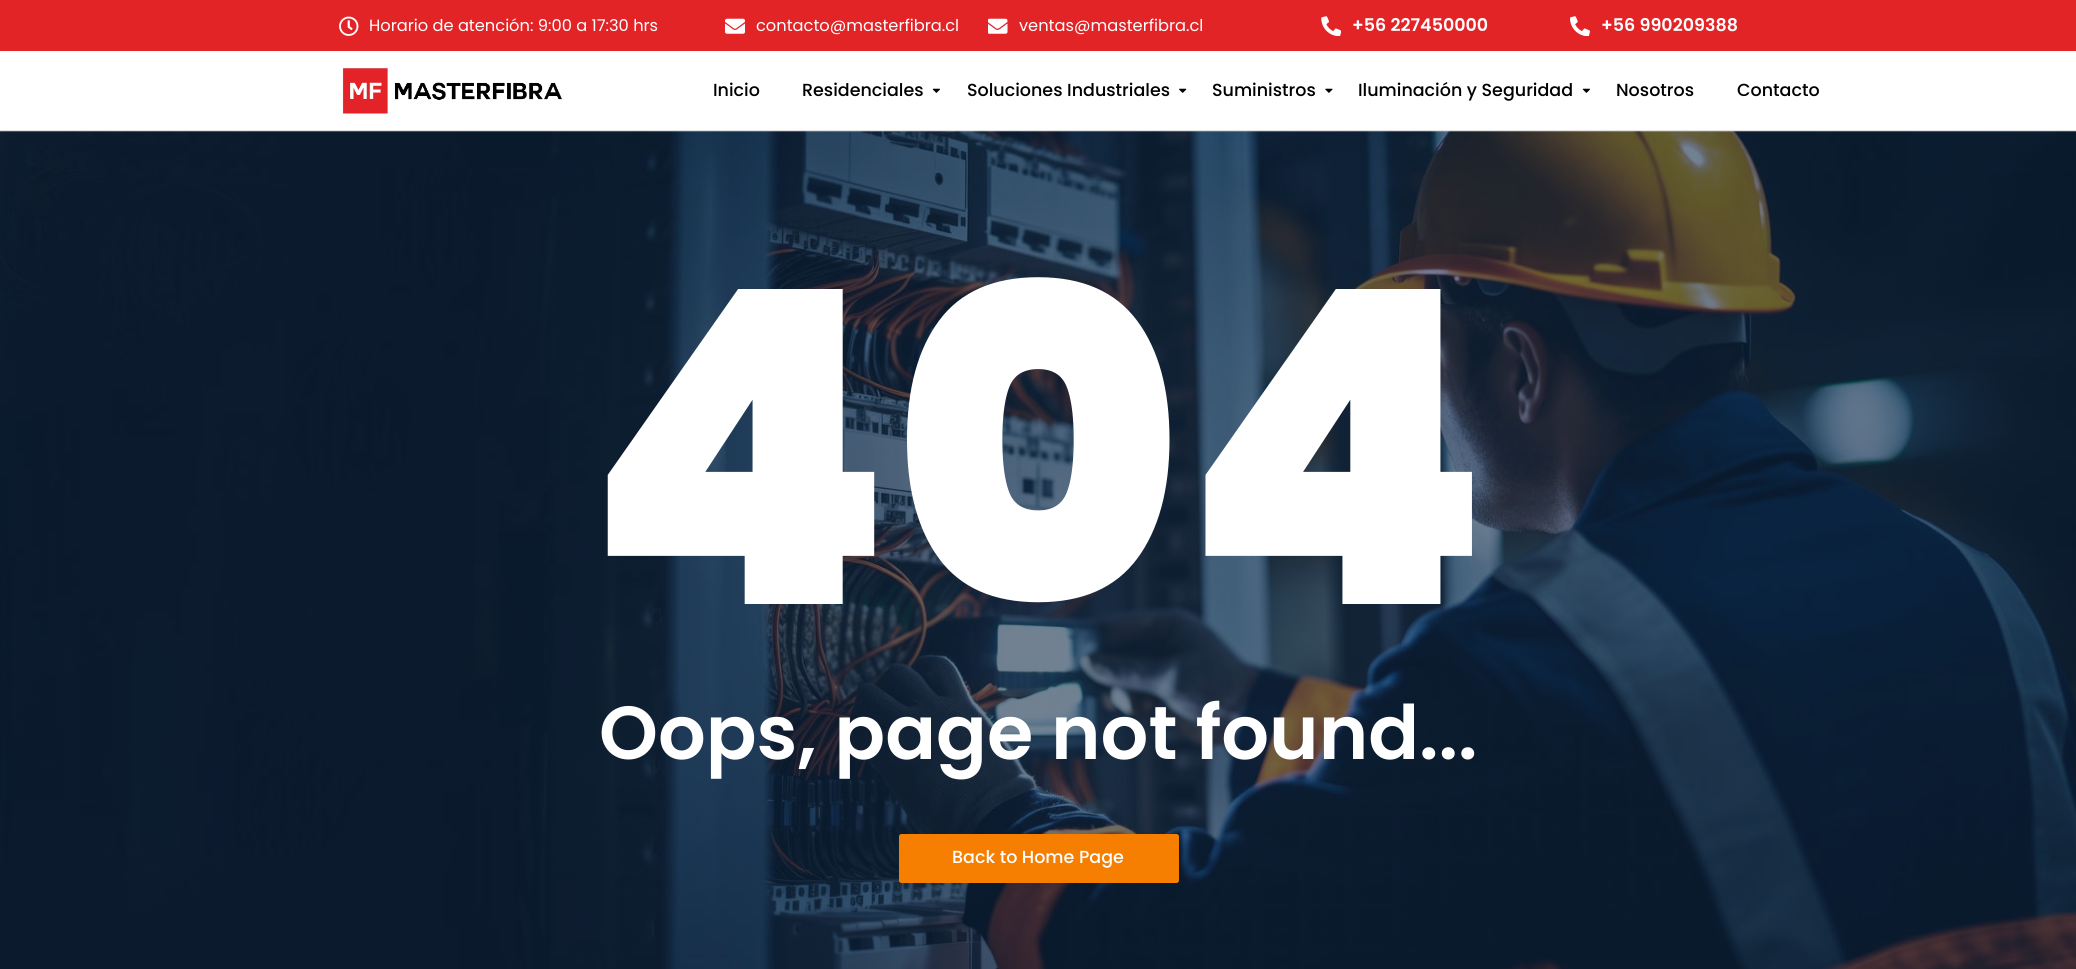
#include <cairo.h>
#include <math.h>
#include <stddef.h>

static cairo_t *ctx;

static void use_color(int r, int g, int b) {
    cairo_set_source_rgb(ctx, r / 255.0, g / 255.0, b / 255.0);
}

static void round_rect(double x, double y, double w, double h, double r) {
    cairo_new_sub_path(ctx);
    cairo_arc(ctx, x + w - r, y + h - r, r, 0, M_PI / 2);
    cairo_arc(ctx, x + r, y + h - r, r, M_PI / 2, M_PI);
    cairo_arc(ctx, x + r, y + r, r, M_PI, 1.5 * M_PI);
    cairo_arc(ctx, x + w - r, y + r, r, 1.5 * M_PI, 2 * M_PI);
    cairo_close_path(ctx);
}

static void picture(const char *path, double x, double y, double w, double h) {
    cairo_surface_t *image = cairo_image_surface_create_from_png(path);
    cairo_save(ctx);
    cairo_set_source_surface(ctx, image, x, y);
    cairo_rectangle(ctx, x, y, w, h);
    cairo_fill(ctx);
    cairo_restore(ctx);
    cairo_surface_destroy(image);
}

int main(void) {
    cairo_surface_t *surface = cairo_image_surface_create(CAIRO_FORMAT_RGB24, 2076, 969);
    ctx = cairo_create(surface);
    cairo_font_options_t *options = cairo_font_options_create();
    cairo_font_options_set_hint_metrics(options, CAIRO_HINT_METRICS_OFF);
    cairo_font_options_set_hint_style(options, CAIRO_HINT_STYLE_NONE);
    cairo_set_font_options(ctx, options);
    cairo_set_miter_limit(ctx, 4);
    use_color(255, 255, 255);
    cairo_paint(ctx);
    use_color(226, 36, 39);
    cairo_rectangle(ctx, 0, 0, 2076, 51);
    cairo_fill(ctx);
    picture("img1.png", 339, 16, 20, 20);
    cairo_select_font_face(ctx, "Poppins", CAIRO_FONT_SLANT_NORMAL, CAIRO_FONT_WEIGHT_NORMAL);
    cairo_set_font_size(ctx, 16.25);
    use_color(255, 255, 255);
    cairo_move_to(ctx, 369, 31);
    cairo_show_text(ctx, "Horario de atención: 9:00 a 17:30 hrs");
    picture("img2.png", 725, 18, 20, 16);
    cairo_move_to(ctx, 756, 31);
    cairo_show_text(ctx, "contacto@masterfibra.cl");
    picture("img3.png", 988, 18, 20, 16);
    cairo_move_to(ctx, 1019, 31);
    cairo_show_text(ctx, "ventas@masterfibra.cl");
    picture("img4.png", 1321, 16, 20, 20);
    cairo_select_font_face(ctx, "Poppins SemiBold", CAIRO_FONT_SLANT_NORMAL, CAIRO_FONT_WEIGHT_NORMAL);
    cairo_set_font_size(ctx, 17.5);
    cairo_move_to(ctx, 1352, 31);
    cairo_show_text(ctx, "+56 227450000");
    picture("img5.png", 1570, 16, 20, 20);
    cairo_move_to(ctx, 1601, 31);
    cairo_show_text(ctx, "+56 990209388");
    use_color(224, 224, 224);
    cairo_rectangle(ctx, 0, 130, 2076, 1);
    cairo_fill(ctx);
    picture("img6.png", 342, 68, 220, 46);
    cairo_select_font_face(ctx, "Poppins Medium", CAIRO_FONT_SLANT_NORMAL, CAIRO_FONT_WEIGHT_NORMAL);
    use_color(0, 0, 0);
    cairo_move_to(ctx, 713, 96);
    cairo_show_text(ctx, "Inicio");
    cairo_move_to(ctx, 802, 96);
    cairo_show_text(ctx, "Residenciales");
    picture("img7.png", 932, 88, 8, 5);
    cairo_move_to(ctx, 967, 96);
    cairo_show_text(ctx, "Soluciones Industriales");
    picture("img8.png", 1179, 88, 8, 5);
    cairo_move_to(ctx, 1212, 96);
    cairo_show_text(ctx, "Suministros");
    picture("img9.png", 1325, 88, 8, 5);
    cairo_move_to(ctx, 1358, 96);
    cairo_show_text(ctx, "Iluminación y Seguridad");
    picture("img7.png", 1582, 88, 8, 5);
    cairo_move_to(ctx, 1616, 96);
    cairo_show_text(ctx, "Nosotros");
    cairo_move_to(ctx, 1737, 96);
    cairo_show_text(ctx, "Contacto");
    picture("img10.png", 0, 131, 2076, 838);
    cairo_select_font_face(ctx, "Poppins Black", CAIRO_FONT_SLANT_NORMAL, CAIRO_FONT_WEIGHT_NORMAL);
    cairo_set_font_size(ctx, 437.5);
    use_color(255, 255, 255);
    cairo_move_to(ctx, 585, 604);
    cairo_show_text(ctx, "404");
    cairo_select_font_face(ctx, "Poppins SemiBold", CAIRO_FONT_SLANT_NORMAL, CAIRO_FONT_WEIGHT_NORMAL);
    cairo_set_font_size(ctx, 75);
    cairo_move_to(ctx, 599, 759);
    cairo_show_text(ctx, "Oops, page not found...");
    use_color(246, 127, 1);
    round_rect(899, 834, 280, 49, 2.5);
    cairo_fill(ctx);
    cairo_select_font_face(ctx, "Poppins Medium", CAIRO_FONT_SLANT_NORMAL, CAIRO_FONT_WEIGHT_NORMAL);
    cairo_set_font_size(ctx, 17.5);
    use_color(255, 255, 255);
    cairo_move_to(ctx, 952, 863);
    cairo_show_text(ctx, "Back to Home Page");
    cairo_surface_write_to_png(surface, "result.png");
    cairo_font_options_destroy(options);
    cairo_destroy(ctx);
    cairo_surface_destroy(surface);
    return 0;
}
